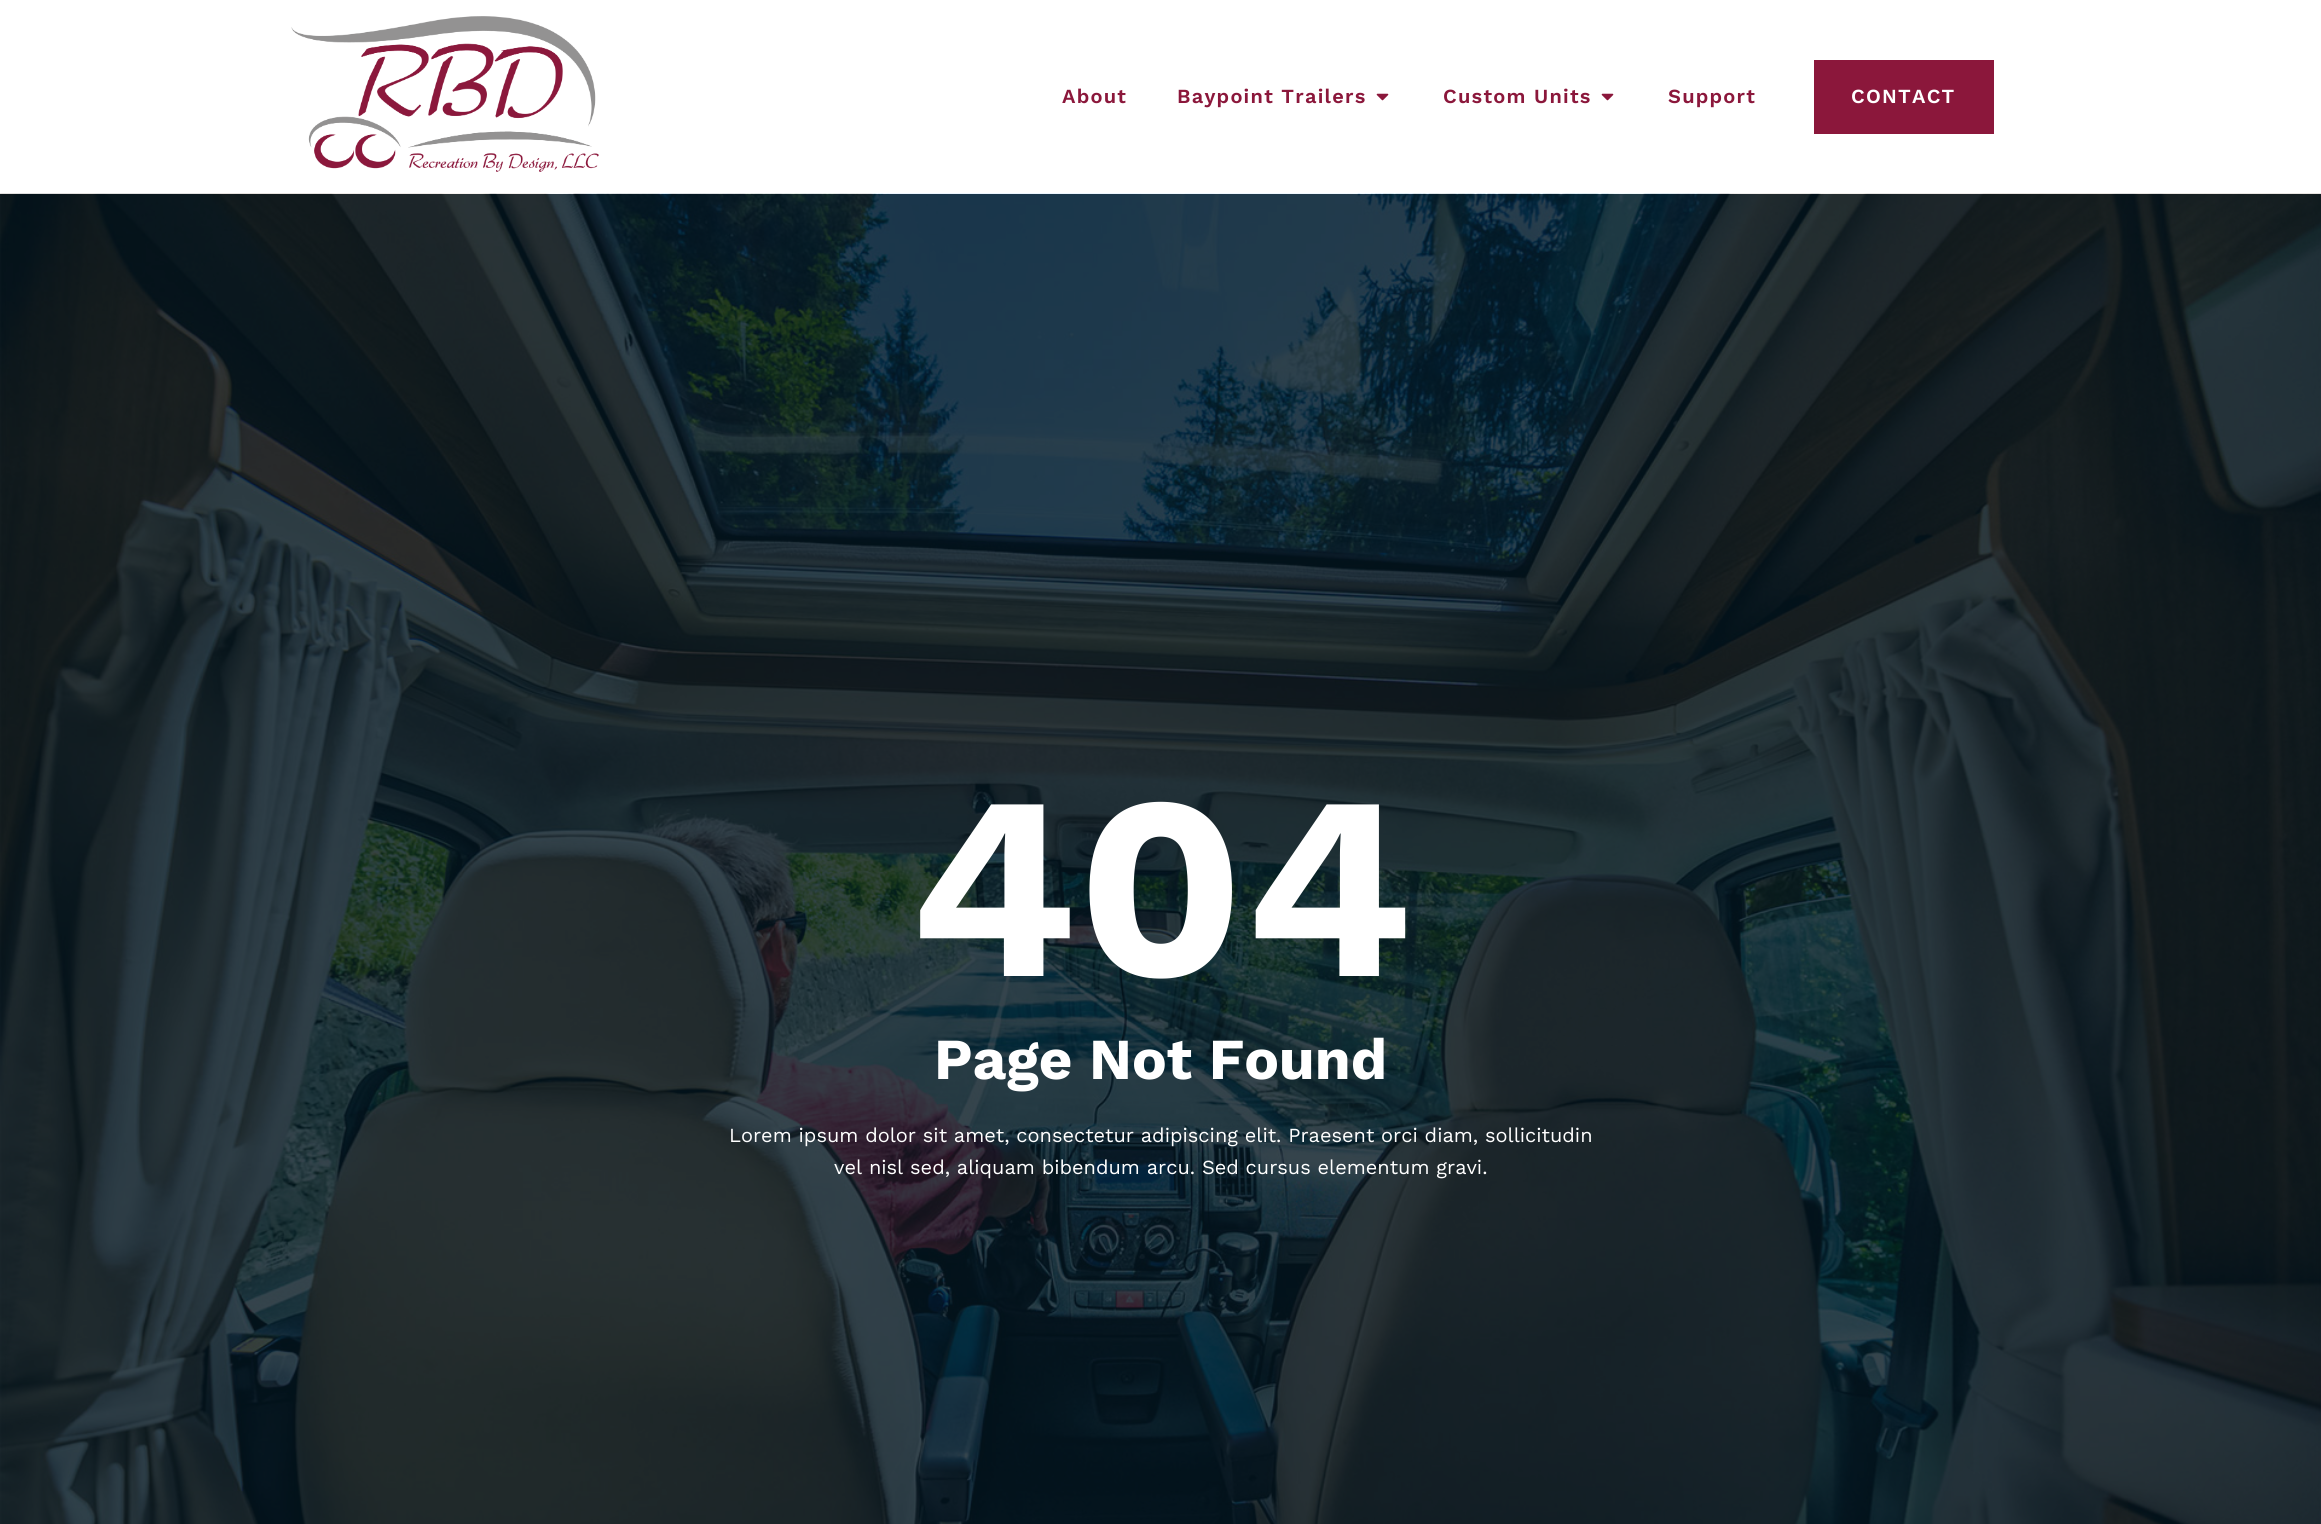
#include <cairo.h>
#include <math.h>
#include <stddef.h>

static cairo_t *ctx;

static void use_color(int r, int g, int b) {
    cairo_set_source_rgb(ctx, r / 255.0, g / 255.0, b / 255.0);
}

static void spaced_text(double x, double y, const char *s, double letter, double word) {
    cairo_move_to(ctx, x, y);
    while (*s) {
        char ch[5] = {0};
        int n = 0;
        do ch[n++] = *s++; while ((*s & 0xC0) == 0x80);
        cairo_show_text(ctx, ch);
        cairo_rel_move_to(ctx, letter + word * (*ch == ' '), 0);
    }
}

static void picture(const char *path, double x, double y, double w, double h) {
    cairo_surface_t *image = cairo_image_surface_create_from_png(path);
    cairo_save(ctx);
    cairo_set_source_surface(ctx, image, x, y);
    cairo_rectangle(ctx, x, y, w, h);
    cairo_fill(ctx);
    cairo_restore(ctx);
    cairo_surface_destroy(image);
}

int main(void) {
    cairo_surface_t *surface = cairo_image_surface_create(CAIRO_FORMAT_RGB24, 2321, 1524);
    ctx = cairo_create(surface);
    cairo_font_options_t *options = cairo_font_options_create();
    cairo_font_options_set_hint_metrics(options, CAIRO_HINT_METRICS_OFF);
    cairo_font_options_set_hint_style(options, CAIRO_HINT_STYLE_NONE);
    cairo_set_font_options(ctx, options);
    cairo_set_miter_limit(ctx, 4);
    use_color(255, 255, 255);
    cairo_paint(ctx);
    picture("img3.png", 0, 193, 2321, 1331);
    cairo_set_source_rgba(ctx, 1, 1, 1, 0.47);
    cairo_rectangle(ctx, 0, 193, 2321, 1);
    cairo_fill(ctx);
    picture("img1.png", 291, 16, 308, 156);
    cairo_select_font_face(ctx, "Work Sans SemiBold", CAIRO_FONT_SLANT_NORMAL, CAIRO_FONT_WEIGHT_NORMAL);
    cairo_set_font_size(ctx, 20);
    use_color(139, 23, 59);
    spaced_text(1062, 103, "About", 1.25, 0);
    spaced_text(1177, 103, "Baypoint Trailers", 1.25, 0);
    picture("img2.png", 1376, 93, 13, 8);
    spaced_text(1443, 103, "Custom Units", 1.25, 0);
    picture("img2.png", 1601, 93, 13, 8);
    spaced_text(1668, 103, "Support", 1.25, 0);
    cairo_rectangle(ctx, 1814, 60, 180, 74);
    cairo_fill(ctx);
    use_color(255, 255, 255);
    spaced_text(1851, 103, "CONTACT", 1.25, 0);
    cairo_select_font_face(ctx, "Work Sans", CAIRO_FONT_SLANT_NORMAL, CAIRO_FONT_WEIGHT_BOLD);
    cairo_set_font_size(ctx, 260);
    cairo_move_to(ctx, 909, 976);
    cairo_show_text(ctx, "404");
    cairo_set_font_size(ctx, 58);
    cairo_move_to(ctx, 934, 1079);
    cairo_show_text(ctx, "Page Not Found");
    cairo_select_font_face(ctx, "Work Sans", CAIRO_FONT_SLANT_NORMAL, CAIRO_FONT_WEIGHT_NORMAL);
    cairo_set_font_size(ctx, 20);
    cairo_move_to(ctx, 729, 1142);
    cairo_show_text(ctx, "Lorem ipsum dolor sit amet, consectetur adipiscing elit. Praesent orci diam, sollicitudin");
    cairo_move_to(ctx, 834, 1174);
    cairo_show_text(ctx, "vel nisl sed, aliquam bibendum arcu. Sed cursus elementum gravi.");
    cairo_surface_write_to_png(surface, "result.png");
    cairo_font_options_destroy(options);
    cairo_destroy(ctx);
    cairo_surface_destroy(surface);
    return 0;
}
